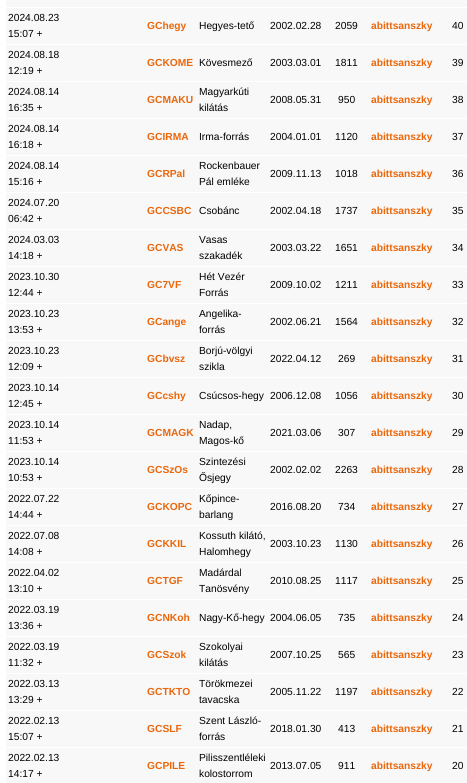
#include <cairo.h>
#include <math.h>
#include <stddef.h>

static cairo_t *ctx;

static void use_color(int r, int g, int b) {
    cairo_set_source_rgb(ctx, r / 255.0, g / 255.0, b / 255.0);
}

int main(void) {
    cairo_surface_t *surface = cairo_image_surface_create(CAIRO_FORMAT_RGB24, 467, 783);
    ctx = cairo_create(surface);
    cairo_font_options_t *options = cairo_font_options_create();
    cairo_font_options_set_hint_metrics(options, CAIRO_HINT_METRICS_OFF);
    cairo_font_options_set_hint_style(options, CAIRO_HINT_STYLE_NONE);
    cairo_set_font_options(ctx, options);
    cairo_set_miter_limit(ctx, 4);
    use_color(255, 255, 255);
    cairo_paint(ctx);
    use_color(248, 248, 248);
    cairo_rectangle(ctx, 6, 0, 461, 7);
    cairo_fill(ctx);
    cairo_rectangle(ctx, 6, 8, 461, 36);
    cairo_fill(ctx);
    cairo_select_font_face(ctx, "Liberation Sans", CAIRO_FONT_SLANT_NORMAL, CAIRO_FONT_WEIGHT_NORMAL);
    cairo_set_font_size(ctx, 10.25);
    use_color(0, 0, 0);
    cairo_move_to(ctx, 8, 21);
    cairo_show_text(ctx, "2024.08.23");
    cairo_move_to(ctx, 8, 37);
    cairo_show_text(ctx, "15:07 +");
    cairo_select_font_face(ctx, "Liberation Sans", CAIRO_FONT_SLANT_NORMAL, CAIRO_FONT_WEIGHT_BOLD);
    use_color(234, 103, 12);
    cairo_move_to(ctx, 147, 29);
    cairo_show_text(ctx, "GChegy");
    cairo_select_font_face(ctx, "Liberation Sans", CAIRO_FONT_SLANT_NORMAL, CAIRO_FONT_WEIGHT_NORMAL);
    use_color(0, 0, 0);
    cairo_move_to(ctx, 199, 29);
    cairo_show_text(ctx, "Hegyes-tető");
    cairo_move_to(ctx, 270, 29);
    cairo_show_text(ctx, "2002.02.28");
    cairo_move_to(ctx, 335, 29);
    cairo_show_text(ctx, "2059");
    cairo_select_font_face(ctx, "Liberation Sans", CAIRO_FONT_SLANT_NORMAL, CAIRO_FONT_WEIGHT_BOLD);
    use_color(234, 103, 12);
    cairo_move_to(ctx, 371, 29);
    cairo_show_text(ctx, "abittsanszky");
    cairo_select_font_face(ctx, "Liberation Sans", CAIRO_FONT_SLANT_NORMAL, CAIRO_FONT_WEIGHT_NORMAL);
    use_color(0, 0, 0);
    cairo_move_to(ctx, 452, 29);
    cairo_show_text(ctx, "40");
    use_color(248, 248, 248);
    cairo_rectangle(ctx, 6, 45, 461, 36);
    cairo_fill(ctx);
    use_color(0, 0, 0);
    cairo_move_to(ctx, 8, 58);
    cairo_show_text(ctx, "2024.08.18");
    cairo_move_to(ctx, 8, 74);
    cairo_show_text(ctx, "12:19 +");
    cairo_select_font_face(ctx, "Liberation Sans", CAIRO_FONT_SLANT_NORMAL, CAIRO_FONT_WEIGHT_BOLD);
    use_color(234, 103, 12);
    cairo_move_to(ctx, 147, 66);
    cairo_show_text(ctx, "GCKOME");
    cairo_select_font_face(ctx, "Liberation Sans", CAIRO_FONT_SLANT_NORMAL, CAIRO_FONT_WEIGHT_NORMAL);
    use_color(0, 0, 0);
    cairo_move_to(ctx, 199, 66);
    cairo_show_text(ctx, "Kövesmező");
    cairo_move_to(ctx, 270, 66);
    cairo_show_text(ctx, "2003.03.01");
    cairo_move_to(ctx, 335, 66);
    cairo_show_text(ctx, "1811");
    cairo_select_font_face(ctx, "Liberation Sans", CAIRO_FONT_SLANT_NORMAL, CAIRO_FONT_WEIGHT_BOLD);
    use_color(234, 103, 12);
    cairo_move_to(ctx, 371, 66);
    cairo_show_text(ctx, "abittsanszky");
    cairo_select_font_face(ctx, "Liberation Sans", CAIRO_FONT_SLANT_NORMAL, CAIRO_FONT_WEIGHT_NORMAL);
    use_color(0, 0, 0);
    cairo_move_to(ctx, 452, 66);
    cairo_show_text(ctx, "39");
    use_color(248, 248, 248);
    cairo_rectangle(ctx, 6, 82, 461, 36);
    cairo_fill(ctx);
    use_color(0, 0, 0);
    cairo_move_to(ctx, 8, 95);
    cairo_show_text(ctx, "2024.08.14");
    cairo_move_to(ctx, 8, 111);
    cairo_show_text(ctx, "16:35 +");
    cairo_select_font_face(ctx, "Liberation Sans", CAIRO_FONT_SLANT_NORMAL, CAIRO_FONT_WEIGHT_BOLD);
    use_color(234, 103, 12);
    cairo_move_to(ctx, 147, 103);
    cairo_show_text(ctx, "GCMAKU");
    cairo_select_font_face(ctx, "Liberation Sans", CAIRO_FONT_SLANT_NORMAL, CAIRO_FONT_WEIGHT_NORMAL);
    use_color(0, 0, 0);
    cairo_move_to(ctx, 199, 95);
    cairo_show_text(ctx, "Magyarkúti");
    cairo_move_to(ctx, 199, 111);
    cairo_show_text(ctx, "kilátás");
    cairo_move_to(ctx, 270, 103);
    cairo_show_text(ctx, "2008.05.31");
    cairo_move_to(ctx, 338, 103);
    cairo_show_text(ctx, "950");
    cairo_select_font_face(ctx, "Liberation Sans", CAIRO_FONT_SLANT_NORMAL, CAIRO_FONT_WEIGHT_BOLD);
    use_color(234, 103, 12);
    cairo_move_to(ctx, 371, 103);
    cairo_show_text(ctx, "abittsanszky");
    cairo_select_font_face(ctx, "Liberation Sans", CAIRO_FONT_SLANT_NORMAL, CAIRO_FONT_WEIGHT_NORMAL);
    use_color(0, 0, 0);
    cairo_move_to(ctx, 452, 103);
    cairo_show_text(ctx, "38");
    use_color(248, 248, 248);
    cairo_rectangle(ctx, 6, 119, 461, 36);
    cairo_fill(ctx);
    use_color(0, 0, 0);
    cairo_move_to(ctx, 8, 132);
    cairo_show_text(ctx, "2024.08.14");
    cairo_move_to(ctx, 8, 148);
    cairo_show_text(ctx, "16:18 +");
    cairo_select_font_face(ctx, "Liberation Sans", CAIRO_FONT_SLANT_NORMAL, CAIRO_FONT_WEIGHT_BOLD);
    use_color(234, 103, 12);
    cairo_move_to(ctx, 147, 140);
    cairo_show_text(ctx, "GCIRMA");
    cairo_select_font_face(ctx, "Liberation Sans", CAIRO_FONT_SLANT_NORMAL, CAIRO_FONT_WEIGHT_NORMAL);
    use_color(0, 0, 0);
    cairo_move_to(ctx, 199, 140);
    cairo_show_text(ctx, "Irma-forrás");
    cairo_move_to(ctx, 270, 140);
    cairo_show_text(ctx, "2004.01.01");
    cairo_move_to(ctx, 335, 140);
    cairo_show_text(ctx, "1120");
    cairo_select_font_face(ctx, "Liberation Sans", CAIRO_FONT_SLANT_NORMAL, CAIRO_FONT_WEIGHT_BOLD);
    use_color(234, 103, 12);
    cairo_move_to(ctx, 371, 140);
    cairo_show_text(ctx, "abittsanszky");
    cairo_select_font_face(ctx, "Liberation Sans", CAIRO_FONT_SLANT_NORMAL, CAIRO_FONT_WEIGHT_NORMAL);
    use_color(0, 0, 0);
    cairo_move_to(ctx, 452, 140);
    cairo_show_text(ctx, "37");
    use_color(248, 248, 248);
    cairo_rectangle(ctx, 6, 156, 461, 36);
    cairo_fill(ctx);
    use_color(0, 0, 0);
    cairo_move_to(ctx, 8, 169);
    cairo_show_text(ctx, "2024.08.14");
    cairo_move_to(ctx, 8, 185);
    cairo_show_text(ctx, "15:16 +");
    cairo_select_font_face(ctx, "Liberation Sans", CAIRO_FONT_SLANT_NORMAL, CAIRO_FONT_WEIGHT_BOLD);
    use_color(234, 103, 12);
    cairo_move_to(ctx, 147, 177);
    cairo_show_text(ctx, "GCRPal");
    cairo_select_font_face(ctx, "Liberation Sans", CAIRO_FONT_SLANT_NORMAL, CAIRO_FONT_WEIGHT_NORMAL);
    use_color(0, 0, 0);
    cairo_move_to(ctx, 199, 169);
    cairo_show_text(ctx, "Rockenbauer");
    cairo_move_to(ctx, 199, 185);
    cairo_show_text(ctx, "Pál emléke");
    cairo_move_to(ctx, 270, 177);
    cairo_show_text(ctx, "2009.11.13");
    cairo_move_to(ctx, 335, 177);
    cairo_show_text(ctx, "1018");
    cairo_select_font_face(ctx, "Liberation Sans", CAIRO_FONT_SLANT_NORMAL, CAIRO_FONT_WEIGHT_BOLD);
    use_color(234, 103, 12);
    cairo_move_to(ctx, 371, 177);
    cairo_show_text(ctx, "abittsanszky");
    cairo_select_font_face(ctx, "Liberation Sans", CAIRO_FONT_SLANT_NORMAL, CAIRO_FONT_WEIGHT_NORMAL);
    use_color(0, 0, 0);
    cairo_move_to(ctx, 452, 177);
    cairo_show_text(ctx, "36");
    use_color(248, 248, 248);
    cairo_rectangle(ctx, 6, 193, 461, 36);
    cairo_fill(ctx);
    use_color(0, 0, 0);
    cairo_move_to(ctx, 8, 206);
    cairo_show_text(ctx, "2024.07.20");
    cairo_move_to(ctx, 8, 222);
    cairo_show_text(ctx, "06:42 +");
    cairo_select_font_face(ctx, "Liberation Sans", CAIRO_FONT_SLANT_NORMAL, CAIRO_FONT_WEIGHT_BOLD);
    use_color(234, 103, 12);
    cairo_move_to(ctx, 147, 214);
    cairo_show_text(ctx, "GCCSBC");
    cairo_select_font_face(ctx, "Liberation Sans", CAIRO_FONT_SLANT_NORMAL, CAIRO_FONT_WEIGHT_NORMAL);
    use_color(0, 0, 0);
    cairo_move_to(ctx, 199, 214);
    cairo_show_text(ctx, "Csobánc");
    cairo_move_to(ctx, 270, 214);
    cairo_show_text(ctx, "2002.04.18");
    cairo_move_to(ctx, 335, 214);
    cairo_show_text(ctx, "1737");
    cairo_select_font_face(ctx, "Liberation Sans", CAIRO_FONT_SLANT_NORMAL, CAIRO_FONT_WEIGHT_BOLD);
    use_color(234, 103, 12);
    cairo_move_to(ctx, 371, 214);
    cairo_show_text(ctx, "abittsanszky");
    cairo_select_font_face(ctx, "Liberation Sans", CAIRO_FONT_SLANT_NORMAL, CAIRO_FONT_WEIGHT_NORMAL);
    use_color(0, 0, 0);
    cairo_move_to(ctx, 452, 214);
    cairo_show_text(ctx, "35");
    use_color(248, 248, 248);
    cairo_rectangle(ctx, 6, 230, 461, 36);
    cairo_fill(ctx);
    use_color(0, 0, 0);
    cairo_move_to(ctx, 8, 243);
    cairo_show_text(ctx, "2024.03.03");
    cairo_move_to(ctx, 8, 259);
    cairo_show_text(ctx, "14:18 +");
    cairo_select_font_face(ctx, "Liberation Sans", CAIRO_FONT_SLANT_NORMAL, CAIRO_FONT_WEIGHT_BOLD);
    use_color(234, 103, 12);
    cairo_move_to(ctx, 147, 251);
    cairo_show_text(ctx, "GCVAS");
    cairo_select_font_face(ctx, "Liberation Sans", CAIRO_FONT_SLANT_NORMAL, CAIRO_FONT_WEIGHT_NORMAL);
    use_color(0, 0, 0);
    cairo_move_to(ctx, 199, 243);
    cairo_show_text(ctx, "Vasas");
    cairo_move_to(ctx, 199, 259);
    cairo_show_text(ctx, "szakadék");
    cairo_move_to(ctx, 270, 251);
    cairo_show_text(ctx, "2003.03.22");
    cairo_move_to(ctx, 335, 251);
    cairo_show_text(ctx, "1651");
    cairo_select_font_face(ctx, "Liberation Sans", CAIRO_FONT_SLANT_NORMAL, CAIRO_FONT_WEIGHT_BOLD);
    use_color(234, 103, 12);
    cairo_move_to(ctx, 371, 251);
    cairo_show_text(ctx, "abittsanszky");
    cairo_select_font_face(ctx, "Liberation Sans", CAIRO_FONT_SLANT_NORMAL, CAIRO_FONT_WEIGHT_NORMAL);
    use_color(0, 0, 0);
    cairo_move_to(ctx, 452, 251);
    cairo_show_text(ctx, "34");
    use_color(248, 248, 248);
    cairo_rectangle(ctx, 6, 267, 461, 36);
    cairo_fill(ctx);
    use_color(0, 0, 0);
    cairo_move_to(ctx, 8, 280);
    cairo_show_text(ctx, "2023.10.30");
    cairo_move_to(ctx, 8, 296);
    cairo_show_text(ctx, "12:44 +");
    cairo_select_font_face(ctx, "Liberation Sans", CAIRO_FONT_SLANT_NORMAL, CAIRO_FONT_WEIGHT_BOLD);
    use_color(234, 103, 12);
    cairo_move_to(ctx, 147, 288);
    cairo_show_text(ctx, "GC7VF");
    cairo_select_font_face(ctx, "Liberation Sans", CAIRO_FONT_SLANT_NORMAL, CAIRO_FONT_WEIGHT_NORMAL);
    use_color(0, 0, 0);
    cairo_move_to(ctx, 199, 280);
    cairo_show_text(ctx, "Hét Vezér");
    cairo_move_to(ctx, 199, 296);
    cairo_show_text(ctx, "Forrás");
    cairo_move_to(ctx, 270, 288);
    cairo_show_text(ctx, "2009.10.02");
    cairo_move_to(ctx, 335, 288);
    cairo_show_text(ctx, "1211");
    cairo_select_font_face(ctx, "Liberation Sans", CAIRO_FONT_SLANT_NORMAL, CAIRO_FONT_WEIGHT_BOLD);
    use_color(234, 103, 12);
    cairo_move_to(ctx, 371, 288);
    cairo_show_text(ctx, "abittsanszky");
    cairo_select_font_face(ctx, "Liberation Sans", CAIRO_FONT_SLANT_NORMAL, CAIRO_FONT_WEIGHT_NORMAL);
    use_color(0, 0, 0);
    cairo_move_to(ctx, 452, 288);
    cairo_show_text(ctx, "33");
    use_color(248, 248, 248);
    cairo_rectangle(ctx, 6, 304, 461, 36);
    cairo_fill(ctx);
    use_color(0, 0, 0);
    cairo_move_to(ctx, 8, 317);
    cairo_show_text(ctx, "2023.10.23");
    cairo_move_to(ctx, 8, 333);
    cairo_show_text(ctx, "13:53 +");
    cairo_select_font_face(ctx, "Liberation Sans", CAIRO_FONT_SLANT_NORMAL, CAIRO_FONT_WEIGHT_BOLD);
    use_color(234, 103, 12);
    cairo_move_to(ctx, 147, 325);
    cairo_show_text(ctx, "GCange");
    cairo_select_font_face(ctx, "Liberation Sans", CAIRO_FONT_SLANT_NORMAL, CAIRO_FONT_WEIGHT_NORMAL);
    use_color(0, 0, 0);
    cairo_move_to(ctx, 199, 317);
    cairo_show_text(ctx, "Angelika-");
    cairo_move_to(ctx, 199, 333);
    cairo_show_text(ctx, "forrás");
    cairo_move_to(ctx, 270, 325);
    cairo_show_text(ctx, "2002.06.21");
    cairo_move_to(ctx, 335, 325);
    cairo_show_text(ctx, "1564");
    cairo_select_font_face(ctx, "Liberation Sans", CAIRO_FONT_SLANT_NORMAL, CAIRO_FONT_WEIGHT_BOLD);
    use_color(234, 103, 12);
    cairo_move_to(ctx, 371, 325);
    cairo_show_text(ctx, "abittsanszky");
    cairo_select_font_face(ctx, "Liberation Sans", CAIRO_FONT_SLANT_NORMAL, CAIRO_FONT_WEIGHT_NORMAL);
    use_color(0, 0, 0);
    cairo_move_to(ctx, 452, 325);
    cairo_show_text(ctx, "32");
    use_color(248, 248, 248);
    cairo_rectangle(ctx, 6, 341, 461, 36);
    cairo_fill(ctx);
    use_color(0, 0, 0);
    cairo_move_to(ctx, 8, 354);
    cairo_show_text(ctx, "2023.10.23");
    cairo_move_to(ctx, 8, 370);
    cairo_show_text(ctx, "12:09 +");
    cairo_select_font_face(ctx, "Liberation Sans", CAIRO_FONT_SLANT_NORMAL, CAIRO_FONT_WEIGHT_BOLD);
    use_color(234, 103, 12);
    cairo_move_to(ctx, 147, 362);
    cairo_show_text(ctx, "GCbvsz");
    cairo_select_font_face(ctx, "Liberation Sans", CAIRO_FONT_SLANT_NORMAL, CAIRO_FONT_WEIGHT_NORMAL);
    use_color(0, 0, 0);
    cairo_move_to(ctx, 199, 354);
    cairo_show_text(ctx, "Borjú-völgyi");
    cairo_move_to(ctx, 199, 370);
    cairo_show_text(ctx, "szikla");
    cairo_move_to(ctx, 270, 362);
    cairo_show_text(ctx, "2022.04.12");
    cairo_move_to(ctx, 338, 362);
    cairo_show_text(ctx, "269");
    cairo_select_font_face(ctx, "Liberation Sans", CAIRO_FONT_SLANT_NORMAL, CAIRO_FONT_WEIGHT_BOLD);
    use_color(234, 103, 12);
    cairo_move_to(ctx, 371, 362);
    cairo_show_text(ctx, "abittsanszky");
    cairo_select_font_face(ctx, "Liberation Sans", CAIRO_FONT_SLANT_NORMAL, CAIRO_FONT_WEIGHT_NORMAL);
    use_color(0, 0, 0);
    cairo_move_to(ctx, 452, 362);
    cairo_show_text(ctx, "31");
    use_color(248, 248, 248);
    cairo_rectangle(ctx, 6, 378, 461, 36);
    cairo_fill(ctx);
    use_color(0, 0, 0);
    cairo_move_to(ctx, 8, 391);
    cairo_show_text(ctx, "2023.10.14");
    cairo_move_to(ctx, 8, 407);
    cairo_show_text(ctx, "12:45 +");
    cairo_select_font_face(ctx, "Liberation Sans", CAIRO_FONT_SLANT_NORMAL, CAIRO_FONT_WEIGHT_BOLD);
    use_color(234, 103, 12);
    cairo_move_to(ctx, 147, 399);
    cairo_show_text(ctx, "GCcshy");
    cairo_select_font_face(ctx, "Liberation Sans", CAIRO_FONT_SLANT_NORMAL, CAIRO_FONT_WEIGHT_NORMAL);
    use_color(0, 0, 0);
    cairo_move_to(ctx, 199, 399);
    cairo_show_text(ctx, "Csúcsos-hegy");
    cairo_move_to(ctx, 270, 399);
    cairo_show_text(ctx, "2006.12.08");
    cairo_move_to(ctx, 335, 399);
    cairo_show_text(ctx, "1056");
    cairo_select_font_face(ctx, "Liberation Sans", CAIRO_FONT_SLANT_NORMAL, CAIRO_FONT_WEIGHT_BOLD);
    use_color(234, 103, 12);
    cairo_move_to(ctx, 371, 399);
    cairo_show_text(ctx, "abittsanszky");
    cairo_select_font_face(ctx, "Liberation Sans", CAIRO_FONT_SLANT_NORMAL, CAIRO_FONT_WEIGHT_NORMAL);
    use_color(0, 0, 0);
    cairo_move_to(ctx, 452, 399);
    cairo_show_text(ctx, "30");
    use_color(248, 248, 248);
    cairo_rectangle(ctx, 6, 415, 461, 36);
    cairo_fill(ctx);
    use_color(0, 0, 0);
    cairo_move_to(ctx, 8, 428);
    cairo_show_text(ctx, "2023.10.14");
    cairo_move_to(ctx, 8, 444);
    cairo_show_text(ctx, "11:53 +");
    cairo_select_font_face(ctx, "Liberation Sans", CAIRO_FONT_SLANT_NORMAL, CAIRO_FONT_WEIGHT_BOLD);
    use_color(234, 103, 12);
    cairo_move_to(ctx, 147, 436);
    cairo_show_text(ctx, "GCMAGK");
    cairo_select_font_face(ctx, "Liberation Sans", CAIRO_FONT_SLANT_NORMAL, CAIRO_FONT_WEIGHT_NORMAL);
    use_color(0, 0, 0);
    cairo_move_to(ctx, 199, 428);
    cairo_show_text(ctx, "Nadap,");
    cairo_move_to(ctx, 199, 444);
    cairo_show_text(ctx, "Magos-kő");
    cairo_move_to(ctx, 270, 436);
    cairo_show_text(ctx, "2021.03.06");
    cairo_move_to(ctx, 338, 436);
    cairo_show_text(ctx, "307");
    cairo_select_font_face(ctx, "Liberation Sans", CAIRO_FONT_SLANT_NORMAL, CAIRO_FONT_WEIGHT_BOLD);
    use_color(234, 103, 12);
    cairo_move_to(ctx, 371, 436);
    cairo_show_text(ctx, "abittsanszky");
    cairo_select_font_face(ctx, "Liberation Sans", CAIRO_FONT_SLANT_NORMAL, CAIRO_FONT_WEIGHT_NORMAL);
    use_color(0, 0, 0);
    cairo_move_to(ctx, 452, 436);
    cairo_show_text(ctx, "29");
    use_color(248, 248, 248);
    cairo_rectangle(ctx, 6, 452, 461, 36);
    cairo_fill(ctx);
    use_color(0, 0, 0);
    cairo_move_to(ctx, 8, 465);
    cairo_show_text(ctx, "2023.10.14");
    cairo_move_to(ctx, 8, 481);
    cairo_show_text(ctx, "10:53 +");
    cairo_select_font_face(ctx, "Liberation Sans", CAIRO_FONT_SLANT_NORMAL, CAIRO_FONT_WEIGHT_BOLD);
    use_color(234, 103, 12);
    cairo_move_to(ctx, 147, 473);
    cairo_show_text(ctx, "GCSzOs");
    cairo_select_font_face(ctx, "Liberation Sans", CAIRO_FONT_SLANT_NORMAL, CAIRO_FONT_WEIGHT_NORMAL);
    use_color(0, 0, 0);
    cairo_move_to(ctx, 199, 465);
    cairo_show_text(ctx, "Szintezési");
    cairo_move_to(ctx, 199, 481);
    cairo_show_text(ctx, "Ősjegy");
    cairo_move_to(ctx, 270, 473);
    cairo_show_text(ctx, "2002.02.02");
    cairo_move_to(ctx, 335, 473);
    cairo_show_text(ctx, "2263");
    cairo_select_font_face(ctx, "Liberation Sans", CAIRO_FONT_SLANT_NORMAL, CAIRO_FONT_WEIGHT_BOLD);
    use_color(234, 103, 12);
    cairo_move_to(ctx, 371, 473);
    cairo_show_text(ctx, "abittsanszky");
    cairo_select_font_face(ctx, "Liberation Sans", CAIRO_FONT_SLANT_NORMAL, CAIRO_FONT_WEIGHT_NORMAL);
    use_color(0, 0, 0);
    cairo_move_to(ctx, 452, 473);
    cairo_show_text(ctx, "28");
    use_color(248, 248, 248);
    cairo_rectangle(ctx, 6, 489, 461, 36);
    cairo_fill(ctx);
    use_color(0, 0, 0);
    cairo_move_to(ctx, 8, 502);
    cairo_show_text(ctx, "2022.07.22");
    cairo_move_to(ctx, 8, 518);
    cairo_show_text(ctx, "14:44 +");
    cairo_select_font_face(ctx, "Liberation Sans", CAIRO_FONT_SLANT_NORMAL, CAIRO_FONT_WEIGHT_BOLD);
    use_color(234, 103, 12);
    cairo_move_to(ctx, 147, 510);
    cairo_show_text(ctx, "GCKOPC");
    cairo_select_font_face(ctx, "Liberation Sans", CAIRO_FONT_SLANT_NORMAL, CAIRO_FONT_WEIGHT_NORMAL);
    use_color(0, 0, 0);
    cairo_move_to(ctx, 199, 502);
    cairo_show_text(ctx, "Kőpince-");
    cairo_move_to(ctx, 199, 518);
    cairo_show_text(ctx, "barlang");
    cairo_move_to(ctx, 270, 510);
    cairo_show_text(ctx, "2016.08.20");
    cairo_move_to(ctx, 338, 510);
    cairo_show_text(ctx, "734");
    cairo_select_font_face(ctx, "Liberation Sans", CAIRO_FONT_SLANT_NORMAL, CAIRO_FONT_WEIGHT_BOLD);
    use_color(234, 103, 12);
    cairo_move_to(ctx, 371, 510);
    cairo_show_text(ctx, "abittsanszky");
    cairo_select_font_face(ctx, "Liberation Sans", CAIRO_FONT_SLANT_NORMAL, CAIRO_FONT_WEIGHT_NORMAL);
    use_color(0, 0, 0);
    cairo_move_to(ctx, 452, 510);
    cairo_show_text(ctx, "27");
    use_color(248, 248, 248);
    cairo_rectangle(ctx, 6, 526, 461, 36);
    cairo_fill(ctx);
    use_color(0, 0, 0);
    cairo_move_to(ctx, 8, 539);
    cairo_show_text(ctx, "2022.07.08");
    cairo_move_to(ctx, 8, 555);
    cairo_show_text(ctx, "14:08 +");
    cairo_select_font_face(ctx, "Liberation Sans", CAIRO_FONT_SLANT_NORMAL, CAIRO_FONT_WEIGHT_BOLD);
    use_color(234, 103, 12);
    cairo_move_to(ctx, 147, 547);
    cairo_show_text(ctx, "GCKKIL");
    cairo_select_font_face(ctx, "Liberation Sans", CAIRO_FONT_SLANT_NORMAL, CAIRO_FONT_WEIGHT_NORMAL);
    use_color(0, 0, 0);
    cairo_move_to(ctx, 199, 539);
    cairo_show_text(ctx, "Kossuth kilátó,");
    cairo_move_to(ctx, 199, 555);
    cairo_show_text(ctx, "Halomhegy");
    cairo_move_to(ctx, 270, 547);
    cairo_show_text(ctx, "2003.10.23");
    cairo_move_to(ctx, 335, 547);
    cairo_show_text(ctx, "1130");
    cairo_select_font_face(ctx, "Liberation Sans", CAIRO_FONT_SLANT_NORMAL, CAIRO_FONT_WEIGHT_BOLD);
    use_color(234, 103, 12);
    cairo_move_to(ctx, 371, 547);
    cairo_show_text(ctx, "abittsanszky");
    cairo_select_font_face(ctx, "Liberation Sans", CAIRO_FONT_SLANT_NORMAL, CAIRO_FONT_WEIGHT_NORMAL);
    use_color(0, 0, 0);
    cairo_move_to(ctx, 452, 547);
    cairo_show_text(ctx, "26");
    use_color(248, 248, 248);
    cairo_rectangle(ctx, 6, 563, 461, 36);
    cairo_fill(ctx);
    use_color(0, 0, 0);
    cairo_move_to(ctx, 8, 576);
    cairo_show_text(ctx, "2022.04.02");
    cairo_move_to(ctx, 8, 592);
    cairo_show_text(ctx, "13:10 +");
    cairo_select_font_face(ctx, "Liberation Sans", CAIRO_FONT_SLANT_NORMAL, CAIRO_FONT_WEIGHT_BOLD);
    use_color(234, 103, 12);
    cairo_move_to(ctx, 147, 584);
    cairo_show_text(ctx, "GCTGF");
    cairo_select_font_face(ctx, "Liberation Sans", CAIRO_FONT_SLANT_NORMAL, CAIRO_FONT_WEIGHT_NORMAL);
    use_color(0, 0, 0);
    cairo_move_to(ctx, 199, 576);
    cairo_show_text(ctx, "Madárdal");
    cairo_move_to(ctx, 199, 592);
    cairo_show_text(ctx, "Tanösvény");
    cairo_move_to(ctx, 270, 584);
    cairo_show_text(ctx, "2010.08.25");
    cairo_move_to(ctx, 335, 584);
    cairo_show_text(ctx, "1117");
    cairo_select_font_face(ctx, "Liberation Sans", CAIRO_FONT_SLANT_NORMAL, CAIRO_FONT_WEIGHT_BOLD);
    use_color(234, 103, 12);
    cairo_move_to(ctx, 371, 584);
    cairo_show_text(ctx, "abittsanszky");
    cairo_select_font_face(ctx, "Liberation Sans", CAIRO_FONT_SLANT_NORMAL, CAIRO_FONT_WEIGHT_NORMAL);
    use_color(0, 0, 0);
    cairo_move_to(ctx, 452, 584);
    cairo_show_text(ctx, "25");
    use_color(248, 248, 248);
    cairo_rectangle(ctx, 6, 600, 461, 36);
    cairo_fill(ctx);
    use_color(0, 0, 0);
    cairo_move_to(ctx, 8, 613);
    cairo_show_text(ctx, "2022.03.19");
    cairo_move_to(ctx, 8, 629);
    cairo_show_text(ctx, "13:36 +");
    cairo_select_font_face(ctx, "Liberation Sans", CAIRO_FONT_SLANT_NORMAL, CAIRO_FONT_WEIGHT_BOLD);
    use_color(234, 103, 12);
    cairo_move_to(ctx, 147, 621);
    cairo_show_text(ctx, "GCNKoh");
    cairo_select_font_face(ctx, "Liberation Sans", CAIRO_FONT_SLANT_NORMAL, CAIRO_FONT_WEIGHT_NORMAL);
    use_color(0, 0, 0);
    cairo_move_to(ctx, 199, 621);
    cairo_show_text(ctx, "Nagy-Kő-hegy");
    cairo_move_to(ctx, 270, 621);
    cairo_show_text(ctx, "2004.06.05");
    cairo_move_to(ctx, 338, 621);
    cairo_show_text(ctx, "735");
    cairo_select_font_face(ctx, "Liberation Sans", CAIRO_FONT_SLANT_NORMAL, CAIRO_FONT_WEIGHT_BOLD);
    use_color(234, 103, 12);
    cairo_move_to(ctx, 371, 621);
    cairo_show_text(ctx, "abittsanszky");
    cairo_select_font_face(ctx, "Liberation Sans", CAIRO_FONT_SLANT_NORMAL, CAIRO_FONT_WEIGHT_NORMAL);
    use_color(0, 0, 0);
    cairo_move_to(ctx, 452, 621);
    cairo_show_text(ctx, "24");
    use_color(248, 248, 248);
    cairo_rectangle(ctx, 6, 637, 461, 36);
    cairo_fill(ctx);
    use_color(0, 0, 0);
    cairo_move_to(ctx, 8, 650);
    cairo_show_text(ctx, "2022.03.19");
    cairo_move_to(ctx, 8, 666);
    cairo_show_text(ctx, "11:32 +");
    cairo_select_font_face(ctx, "Liberation Sans", CAIRO_FONT_SLANT_NORMAL, CAIRO_FONT_WEIGHT_BOLD);
    use_color(234, 103, 12);
    cairo_move_to(ctx, 147, 658);
    cairo_show_text(ctx, "GCSzok");
    cairo_select_font_face(ctx, "Liberation Sans", CAIRO_FONT_SLANT_NORMAL, CAIRO_FONT_WEIGHT_NORMAL);
    use_color(0, 0, 0);
    cairo_move_to(ctx, 199, 650);
    cairo_show_text(ctx, "Szokolyai");
    cairo_move_to(ctx, 199, 666);
    cairo_show_text(ctx, "kilátás");
    cairo_move_to(ctx, 270, 658);
    cairo_show_text(ctx, "2007.10.25");
    cairo_move_to(ctx, 338, 658);
    cairo_show_text(ctx, "565");
    cairo_select_font_face(ctx, "Liberation Sans", CAIRO_FONT_SLANT_NORMAL, CAIRO_FONT_WEIGHT_BOLD);
    use_color(234, 103, 12);
    cairo_move_to(ctx, 371, 658);
    cairo_show_text(ctx, "abittsanszky");
    cairo_select_font_face(ctx, "Liberation Sans", CAIRO_FONT_SLANT_NORMAL, CAIRO_FONT_WEIGHT_NORMAL);
    use_color(0, 0, 0);
    cairo_move_to(ctx, 452, 658);
    cairo_show_text(ctx, "23");
    use_color(248, 248, 248);
    cairo_rectangle(ctx, 6, 674, 461, 36);
    cairo_fill(ctx);
    use_color(0, 0, 0);
    cairo_move_to(ctx, 8, 687);
    cairo_show_text(ctx, "2022.03.13");
    cairo_move_to(ctx, 8, 703);
    cairo_show_text(ctx, "13:29 +");
    cairo_select_font_face(ctx, "Liberation Sans", CAIRO_FONT_SLANT_NORMAL, CAIRO_FONT_WEIGHT_BOLD);
    use_color(234, 103, 12);
    cairo_move_to(ctx, 147, 695);
    cairo_show_text(ctx, "GCTKTO");
    cairo_select_font_face(ctx, "Liberation Sans", CAIRO_FONT_SLANT_NORMAL, CAIRO_FONT_WEIGHT_NORMAL);
    use_color(0, 0, 0);
    cairo_move_to(ctx, 199, 687);
    cairo_show_text(ctx, "Törökmezei");
    cairo_move_to(ctx, 199, 703);
    cairo_show_text(ctx, "tavacska");
    cairo_move_to(ctx, 270, 695);
    cairo_show_text(ctx, "2005.11.22");
    cairo_move_to(ctx, 335, 695);
    cairo_show_text(ctx, "1197");
    cairo_select_font_face(ctx, "Liberation Sans", CAIRO_FONT_SLANT_NORMAL, CAIRO_FONT_WEIGHT_BOLD);
    use_color(234, 103, 12);
    cairo_move_to(ctx, 371, 695);
    cairo_show_text(ctx, "abittsanszky");
    cairo_select_font_face(ctx, "Liberation Sans", CAIRO_FONT_SLANT_NORMAL, CAIRO_FONT_WEIGHT_NORMAL);
    use_color(0, 0, 0);
    cairo_move_to(ctx, 452, 695);
    cairo_show_text(ctx, "22");
    use_color(248, 248, 248);
    cairo_rectangle(ctx, 6, 711, 461, 36);
    cairo_fill(ctx);
    use_color(0, 0, 0);
    cairo_move_to(ctx, 8, 724);
    cairo_show_text(ctx, "2022.02.13");
    cairo_move_to(ctx, 8, 740);
    cairo_show_text(ctx, "15:07 +");
    cairo_select_font_face(ctx, "Liberation Sans", CAIRO_FONT_SLANT_NORMAL, CAIRO_FONT_WEIGHT_BOLD);
    use_color(234, 103, 12);
    cairo_move_to(ctx, 147, 732);
    cairo_show_text(ctx, "GCSLF");
    cairo_select_font_face(ctx, "Liberation Sans", CAIRO_FONT_SLANT_NORMAL, CAIRO_FONT_WEIGHT_NORMAL);
    use_color(0, 0, 0);
    cairo_move_to(ctx, 199, 724);
    cairo_show_text(ctx, "Szent László-");
    cairo_move_to(ctx, 199, 740);
    cairo_show_text(ctx, "forrás");
    cairo_move_to(ctx, 270, 732);
    cairo_show_text(ctx, "2018.01.30");
    cairo_move_to(ctx, 338, 732);
    cairo_show_text(ctx, "413");
    cairo_select_font_face(ctx, "Liberation Sans", CAIRO_FONT_SLANT_NORMAL, CAIRO_FONT_WEIGHT_BOLD);
    use_color(234, 103, 12);
    cairo_move_to(ctx, 371, 732);
    cairo_show_text(ctx, "abittsanszky");
    cairo_select_font_face(ctx, "Liberation Sans", CAIRO_FONT_SLANT_NORMAL, CAIRO_FONT_WEIGHT_NORMAL);
    use_color(0, 0, 0);
    cairo_move_to(ctx, 452, 732);
    cairo_show_text(ctx, "21");
    use_color(248, 248, 248);
    cairo_rectangle(ctx, 6, 748, 461, 35);
    cairo_fill(ctx);
    use_color(0, 0, 0);
    cairo_move_to(ctx, 8, 761);
    cairo_show_text(ctx, "2022.02.13");
    cairo_move_to(ctx, 8, 777);
    cairo_show_text(ctx, "14:17 +");
    cairo_select_font_face(ctx, "Liberation Sans", CAIRO_FONT_SLANT_NORMAL, CAIRO_FONT_WEIGHT_BOLD);
    use_color(234, 103, 12);
    cairo_move_to(ctx, 147, 769);
    cairo_show_text(ctx, "GCPILE");
    cairo_select_font_face(ctx, "Liberation Sans", CAIRO_FONT_SLANT_NORMAL, CAIRO_FONT_WEIGHT_NORMAL);
    use_color(0, 0, 0);
    cairo_move_to(ctx, 199, 761);
    cairo_show_text(ctx, "Pilisszentléleki");
    cairo_move_to(ctx, 199, 777);
    cairo_show_text(ctx, "kolostorrom");
    cairo_move_to(ctx, 270, 769);
    cairo_show_text(ctx, "2013.07.05");
    cairo_move_to(ctx, 338, 769);
    cairo_show_text(ctx, "911");
    cairo_select_font_face(ctx, "Liberation Sans", CAIRO_FONT_SLANT_NORMAL, CAIRO_FONT_WEIGHT_BOLD);
    use_color(234, 103, 12);
    cairo_move_to(ctx, 371, 769);
    cairo_show_text(ctx, "abittsanszky");
    cairo_select_font_face(ctx, "Liberation Sans", CAIRO_FONT_SLANT_NORMAL, CAIRO_FONT_WEIGHT_NORMAL);
    use_color(0, 0, 0);
    cairo_move_to(ctx, 452, 769);
    cairo_show_text(ctx, "20");
    cairo_surface_write_to_png(surface, "result.png");
    cairo_font_options_destroy(options);
    cairo_destroy(ctx);
    cairo_surface_destroy(surface);
    return 0;
}
